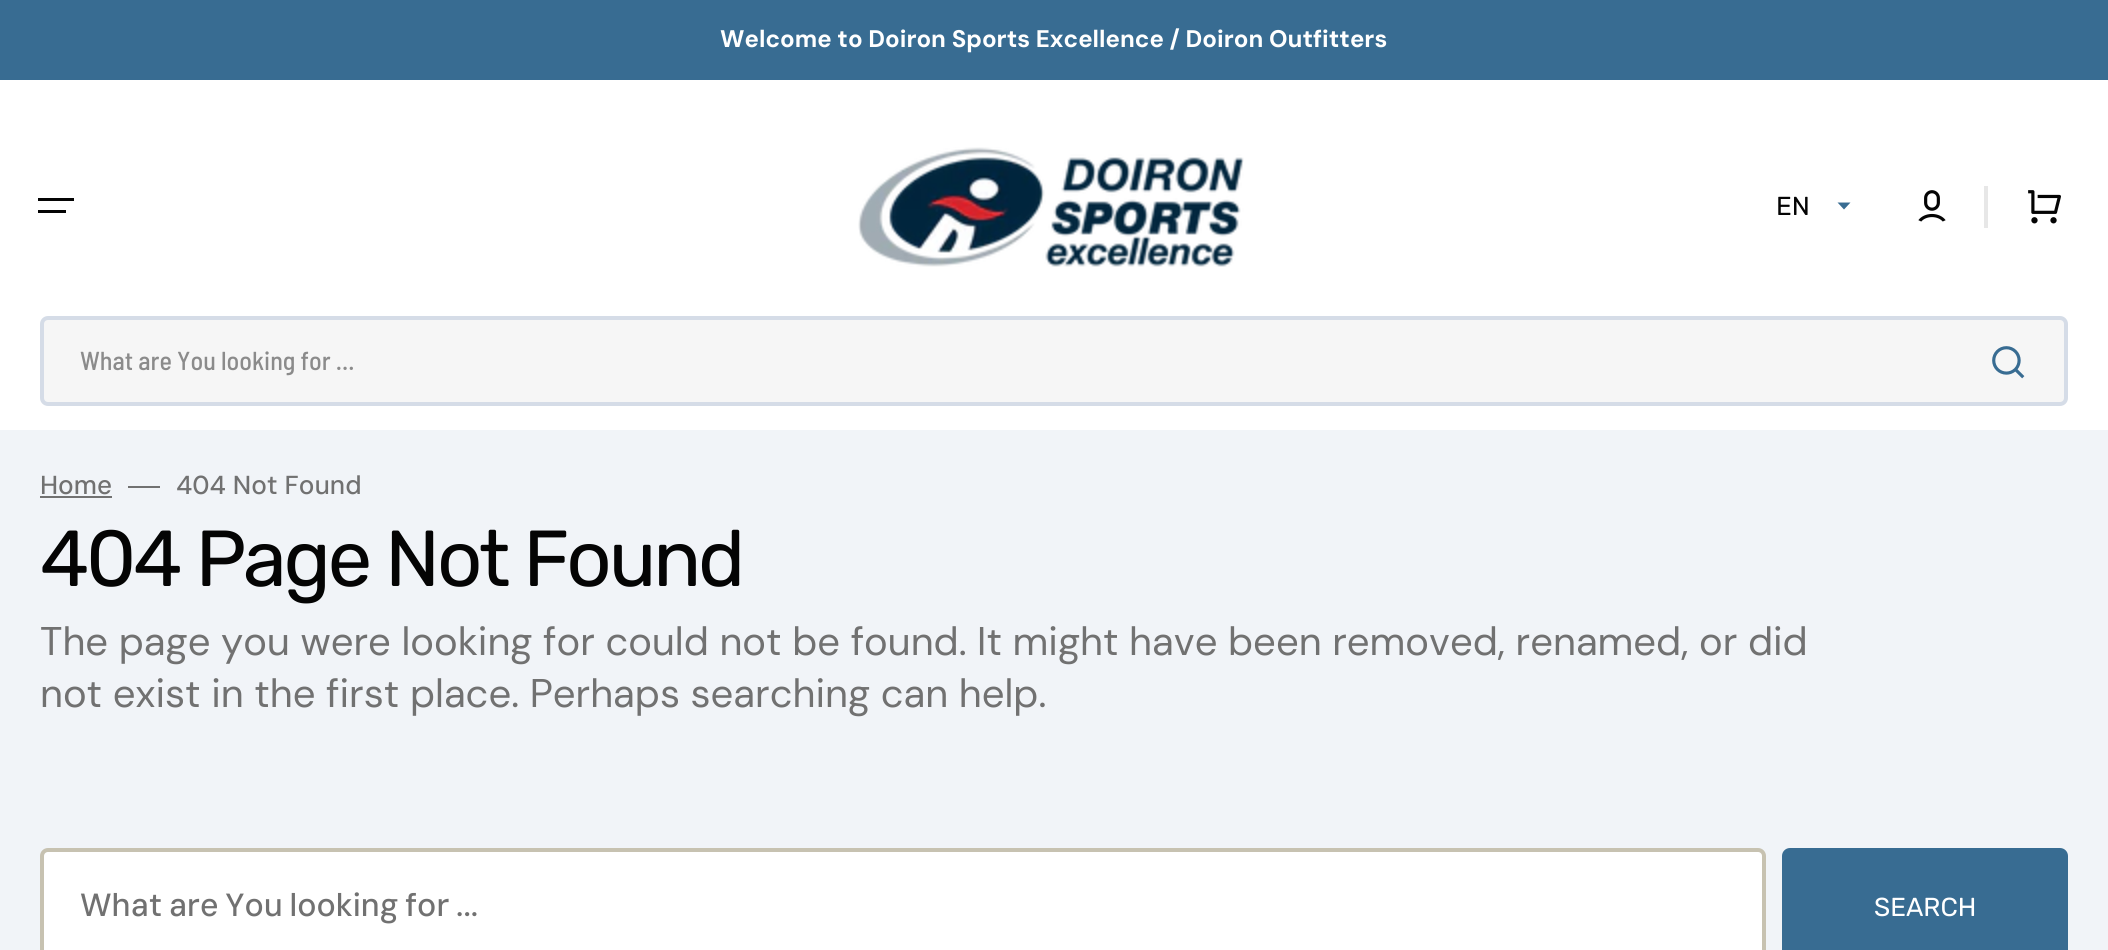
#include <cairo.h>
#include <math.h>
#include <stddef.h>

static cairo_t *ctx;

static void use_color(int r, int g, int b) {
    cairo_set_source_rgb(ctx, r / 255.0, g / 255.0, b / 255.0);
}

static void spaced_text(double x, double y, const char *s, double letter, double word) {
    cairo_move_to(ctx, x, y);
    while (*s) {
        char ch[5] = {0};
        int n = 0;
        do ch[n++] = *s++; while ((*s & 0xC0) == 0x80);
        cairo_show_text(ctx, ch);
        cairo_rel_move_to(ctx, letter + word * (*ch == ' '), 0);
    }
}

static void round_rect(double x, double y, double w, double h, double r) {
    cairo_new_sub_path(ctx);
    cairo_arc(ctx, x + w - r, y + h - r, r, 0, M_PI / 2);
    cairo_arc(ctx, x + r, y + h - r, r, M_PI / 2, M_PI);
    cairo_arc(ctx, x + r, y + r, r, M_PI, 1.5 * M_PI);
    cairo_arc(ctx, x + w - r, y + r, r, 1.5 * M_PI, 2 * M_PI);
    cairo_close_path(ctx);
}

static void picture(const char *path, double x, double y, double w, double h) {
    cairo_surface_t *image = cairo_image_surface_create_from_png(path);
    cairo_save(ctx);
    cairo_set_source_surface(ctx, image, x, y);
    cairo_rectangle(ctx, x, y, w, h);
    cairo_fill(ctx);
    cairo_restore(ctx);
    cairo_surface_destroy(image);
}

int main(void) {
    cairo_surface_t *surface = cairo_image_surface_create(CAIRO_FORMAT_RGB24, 2108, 950);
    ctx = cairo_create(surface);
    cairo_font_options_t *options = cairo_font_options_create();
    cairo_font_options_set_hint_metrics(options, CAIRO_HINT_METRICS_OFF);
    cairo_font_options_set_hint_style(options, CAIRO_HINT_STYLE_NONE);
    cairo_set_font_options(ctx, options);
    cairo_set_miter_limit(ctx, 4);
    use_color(241, 244, 248);
    cairo_paint(ctx);
    use_color(56, 108, 146);
    cairo_rectangle(ctx, 0, 0, 2108, 80);
    cairo_fill(ctx);
    cairo_select_font_face(ctx, "DM Sans", CAIRO_FONT_SLANT_NORMAL, CAIRO_FONT_WEIGHT_BOLD);
    cairo_set_font_size(ctx, 24);
    use_color(255, 255, 255);
    cairo_move_to(ctx, 720, 47);
    cairo_show_text(ctx, "Welcome to Doiron Sports Excellence / Doiron Outfitters");
    cairo_rectangle(ctx, 0, 80, 2108, 350);
    cairo_fill(ctx);
    use_color(4, 4, 4);
    cairo_rectangle(ctx, 38, 198, 36, 3);
    cairo_fill(ctx);
    cairo_rectangle(ctx, 38, 210, 28, 3);
    cairo_fill(ctx);
    picture("img1.png", 858, 147, 386, 120);
    cairo_select_font_face(ctx, "Rubik", CAIRO_FONT_SLANT_NORMAL, CAIRO_FONT_WEIGHT_NORMAL);
    cairo_set_font_size(ctx, 26);
    cairo_move_to(ctx, 1776, 215);
    cairo_show_text(ctx, "EN");
    use_color(56, 108, 146);
    cairo_new_path(ctx);
    cairo_move_to(ctx, 1844, 209.5);
    cairo_line_to(ctx, 1837.5, 202.5);
    cairo_line_to(ctx, 1850.5, 202.5);
    cairo_close_path(ctx);
    cairo_fill(ctx);
    picture("img2.png", 1918, 190, 28, 32);
    use_color(231, 231, 231);
    cairo_rectangle(ctx, 1984, 186, 4, 42);
    cairo_fill(ctx);
    picture("img3.png", 2028, 190, 33, 34);
    use_color(246, 246, 246);
    round_rect(42, 318, 2024, 86, 6);
    cairo_fill_preserve(ctx);
    use_color(213, 220, 231);
    cairo_set_line_width(ctx, 4);
    cairo_stroke(ctx);
    cairo_select_font_face(ctx, "Barlow Semi Condensed Medium", CAIRO_FONT_SLANT_NORMAL, CAIRO_FONT_WEIGHT_NORMAL);
    use_color(139, 139, 139);
    cairo_move_to(ctx, 80, 370);
    cairo_show_text(ctx, "What are You looking for ...");
    picture("img4.png", 1992, 346, 33, 33);
    cairo_select_font_face(ctx, "DM Sans Medium", CAIRO_FONT_SLANT_NORMAL, CAIRO_FONT_WEIGHT_NORMAL);
    use_color(113, 113, 113);
    cairo_move_to(ctx, 40, 494);
    cairo_show_text(ctx, "Home");
    cairo_rectangle(ctx, 40, 496, 72, 2);
    cairo_fill(ctx);
    cairo_rectangle(ctx, 128, 486, 32, 2);
    cairo_fill(ctx);
    cairo_move_to(ctx, 176, 494);
    cairo_show_text(ctx, "404 Not Found");
    cairo_select_font_face(ctx, "Rubik", CAIRO_FONT_SLANT_NORMAL, CAIRO_FONT_WEIGHT_NORMAL);
    cairo_set_font_size(ctx, 79.25);
    use_color(4, 4, 4);
    spaced_text(40, 586, "404 Page Not Found", -3.2, 0);
    cairo_select_font_face(ctx, "DM Sans", CAIRO_FONT_SLANT_NORMAL, CAIRO_FONT_WEIGHT_NORMAL);
    cairo_set_font_size(ctx, 40);
    use_color(113, 113, 113);
    cairo_move_to(ctx, 40, 655);
    cairo_show_text(ctx, "The page you were looking for could not be found. It might have been removed, renamed, or did");
    cairo_move_to(ctx, 40, 707);
    cairo_show_text(ctx, "not exist in the first place. Perhaps searching can help.");
    use_color(255, 255, 255);
    round_rect(42, 850, 1722, 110, 6);
    cairo_fill_preserve(ctx);
    use_color(199, 194, 177);
    cairo_stroke(ctx);
    cairo_select_font_face(ctx, "DM Sans Medium", CAIRO_FONT_SLANT_NORMAL, CAIRO_FONT_WEIGHT_NORMAL);
    cairo_set_font_size(ctx, 32);
    use_color(113, 113, 113);
    spaced_text(80, 916, "What are You looking for ...", 0, -1.5);
    use_color(56, 108, 146);
    round_rect(1782, 848, 286, 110, 8);
    cairo_fill(ctx);
    cairo_select_font_face(ctx, "Rubik", CAIRO_FONT_SLANT_NORMAL, CAIRO_FONT_WEIGHT_NORMAL);
    cairo_set_font_size(ctx, 26);
    use_color(255, 255, 255);
    cairo_move_to(ctx, 1874, 916);
    cairo_show_text(ctx, "SEARCH");
    cairo_surface_write_to_png(surface, "result.png");
    cairo_font_options_destroy(options);
    cairo_destroy(ctx);
    cairo_surface_destroy(surface);
    return 0;
}
